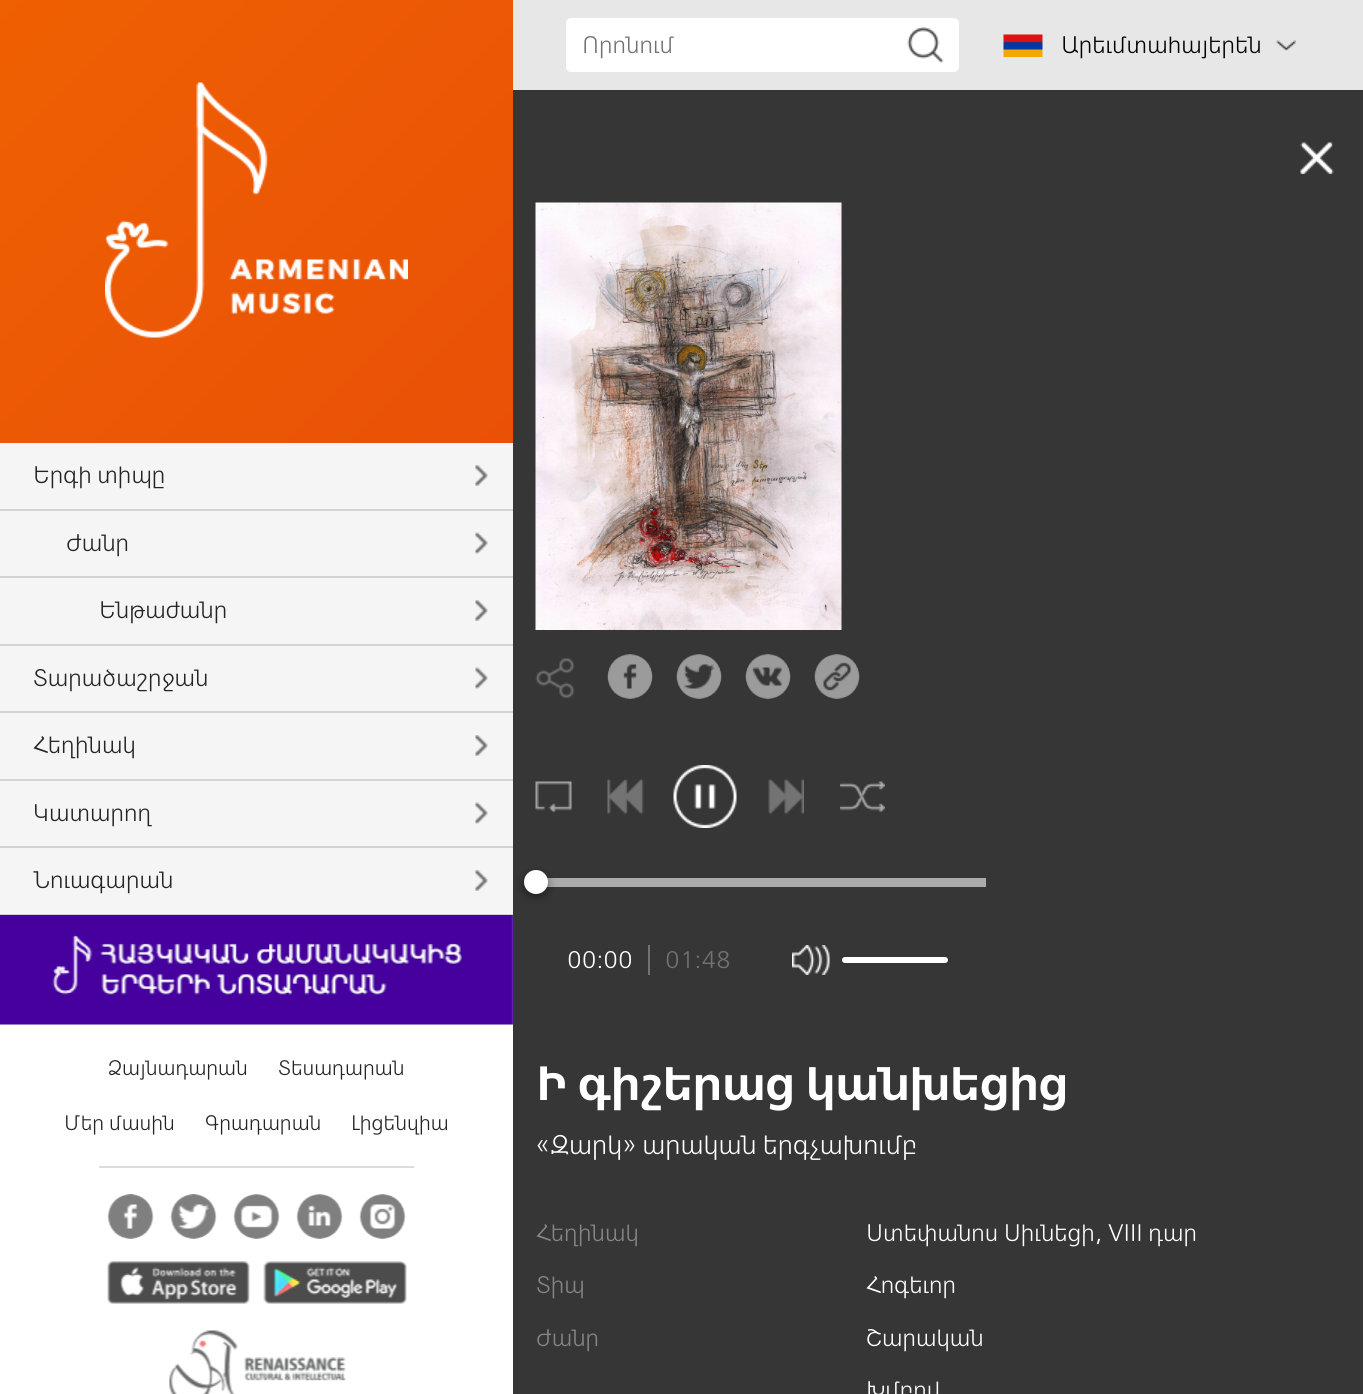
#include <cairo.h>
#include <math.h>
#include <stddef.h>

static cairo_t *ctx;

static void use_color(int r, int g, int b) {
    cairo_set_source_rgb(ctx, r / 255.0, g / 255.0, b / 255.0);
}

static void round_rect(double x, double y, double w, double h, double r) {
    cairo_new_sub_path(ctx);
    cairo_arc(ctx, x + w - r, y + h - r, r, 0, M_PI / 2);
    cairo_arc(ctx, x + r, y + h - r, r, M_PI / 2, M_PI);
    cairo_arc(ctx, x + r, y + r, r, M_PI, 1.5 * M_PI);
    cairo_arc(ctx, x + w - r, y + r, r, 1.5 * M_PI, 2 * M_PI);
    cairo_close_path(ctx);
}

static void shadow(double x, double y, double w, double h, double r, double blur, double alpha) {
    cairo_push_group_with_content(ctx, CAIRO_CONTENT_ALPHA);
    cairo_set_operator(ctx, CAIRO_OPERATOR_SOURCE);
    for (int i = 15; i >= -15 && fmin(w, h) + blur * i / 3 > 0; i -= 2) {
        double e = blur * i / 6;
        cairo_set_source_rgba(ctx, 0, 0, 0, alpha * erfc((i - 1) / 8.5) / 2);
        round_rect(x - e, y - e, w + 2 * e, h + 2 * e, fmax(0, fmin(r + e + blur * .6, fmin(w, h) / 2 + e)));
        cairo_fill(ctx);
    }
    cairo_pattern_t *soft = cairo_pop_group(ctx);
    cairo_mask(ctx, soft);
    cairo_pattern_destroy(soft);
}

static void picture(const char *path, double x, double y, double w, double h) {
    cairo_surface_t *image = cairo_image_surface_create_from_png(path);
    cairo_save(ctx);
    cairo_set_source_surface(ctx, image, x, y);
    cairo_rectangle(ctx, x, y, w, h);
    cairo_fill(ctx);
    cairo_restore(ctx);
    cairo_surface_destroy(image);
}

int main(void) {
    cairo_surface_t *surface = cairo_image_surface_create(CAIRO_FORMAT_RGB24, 1363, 1394);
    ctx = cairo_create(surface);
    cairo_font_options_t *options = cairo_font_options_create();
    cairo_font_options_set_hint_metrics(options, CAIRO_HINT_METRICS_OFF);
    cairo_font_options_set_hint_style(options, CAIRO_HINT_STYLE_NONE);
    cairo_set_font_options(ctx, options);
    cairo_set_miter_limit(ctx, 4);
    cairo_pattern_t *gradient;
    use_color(255, 255, 255);
    cairo_paint(ctx);
    use_color(231, 231, 231);
    cairo_rectangle(ctx, 513, 0, 850, 90);
    cairo_fill(ctx);
    use_color(255, 255, 255);
    round_rect(567, 19, 391, 52, 4);
    cairo_fill_preserve(ctx);
    cairo_stroke(ctx);
    cairo_select_font_face(ctx, "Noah", CAIRO_FONT_SLANT_NORMAL, CAIRO_FONT_WEIGHT_NORMAL);
    cairo_set_font_size(ctx, 24);
    use_color(114, 114, 114);
    cairo_move_to(ctx, 582, 53);
    cairo_show_text(ctx, "Որոնում");
    picture("img1.png", 907, 27, 37, 36);
    picture("img2.png", 1003, 34, 40, 23);
    use_color(0, 0, 0);
    cairo_move_to(ctx, 1061, 53);
    cairo_show_text(ctx, "Արեւմտահայերեն");
    picture("img3.png", 1276, 40, 20, 11);
    gradient = cairo_pattern_create_linear(734, 1175, -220, 220);
    cairo_pattern_add_color_stop_rgba(gradient, 0, 0.894, 0.259, 0.047, 1);
    cairo_pattern_add_color_stop_rgba(gradient, 1, 0.937, 0.376, 0.008, 1);
    cairo_set_source(ctx, gradient);
    cairo_pattern_destroy(gradient);
    cairo_rectangle(ctx, 0, 0, 513, 443);
    cairo_fill(ctx);
    picture("img4.png", 105, 82, 303, 256);
    use_color(245, 245, 245);
    cairo_rectangle(ctx, 0, 443, 513, 582);
    cairo_fill(ctx);
    use_color(211, 211, 211);
    cairo_rectangle(ctx, 0, 509, 513, 2);
    cairo_fill(ctx);
    use_color(36, 36, 36);
    cairo_move_to(ctx, 33, 483);
    cairo_show_text(ctx, "Երգի տիպը");
    picture("img5.png", 475, 465, 13, 21);
    use_color(211, 211, 211);
    cairo_rectangle(ctx, 0, 576, 513, 2);
    cairo_fill(ctx);
    use_color(36, 36, 36);
    cairo_move_to(ctx, 66, 551);
    cairo_show_text(ctx, "Ժանր");
    picture("img6.png", 475, 532, 13, 22);
    use_color(211, 211, 211);
    cairo_rectangle(ctx, 0, 644, 513, 2);
    cairo_fill(ctx);
    use_color(36, 36, 36);
    cairo_move_to(ctx, 99, 618);
    cairo_show_text(ctx, "Ենթաժանր");
    picture("img5.png", 475, 600, 13, 21);
    use_color(211, 211, 211);
    cairo_rectangle(ctx, 0, 711, 513, 2);
    cairo_fill(ctx);
    use_color(36, 36, 36);
    cairo_move_to(ctx, 33, 686);
    cairo_show_text(ctx, "Տարածաշրջան");
    picture("img6.png", 475, 667, 13, 22);
    use_color(211, 211, 211);
    cairo_rectangle(ctx, 0, 779, 513, 2);
    cairo_fill(ctx);
    use_color(36, 36, 36);
    cairo_move_to(ctx, 33, 753);
    cairo_show_text(ctx, "Հեղինակ");
    picture("img5.png", 475, 735, 13, 21);
    use_color(211, 211, 211);
    cairo_rectangle(ctx, 0, 846, 513, 2);
    cairo_fill(ctx);
    use_color(36, 36, 36);
    cairo_move_to(ctx, 33, 821);
    cairo_show_text(ctx, "Կատարող");
    picture("img6.png", 475, 802, 13, 22);
    use_color(211, 211, 211);
    cairo_rectangle(ctx, 0, 914, 513, 2);
    cairo_fill(ctx);
    use_color(36, 36, 36);
    cairo_move_to(ctx, 33, 888);
    cairo_show_text(ctx, "Նուագարան");
    picture("img5.png", 475, 870, 13, 21);
    picture("img7.png", 0, 915, 513, 110);
    cairo_set_font_size(ctx, 21);
    cairo_move_to(ctx, 108, 1075);
    cairo_show_text(ctx, "Ձայնադարան");
    cairo_move_to(ctx, 278, 1075);
    cairo_show_text(ctx, "Տեսադարան");
    cairo_move_to(ctx, 64, 1130);
    cairo_show_text(ctx, "Մեր մասին");
    cairo_move_to(ctx, 205, 1130);
    cairo_show_text(ctx, "Գրադարան");
    cairo_move_to(ctx, 351, 1130);
    cairo_show_text(ctx, "Լիցենզիա");
    use_color(221, 221, 221);
    cairo_rectangle(ctx, 99, 1166, 315, 2);
    cairo_fill(ctx);
    picture("img8.png", 107, 1194, 47, 45);
    picture("img9.png", 170, 1194, 47, 45);
    picture("img10.png", 233, 1194, 47, 45);
    picture("img11.png", 296, 1194, 47, 45);
    picture("img12.png", 359, 1194, 47, 45);
    picture("img13.png", 107, 1261, 143, 43);
    picture("img14.png", 263, 1261, 144, 43);
    picture("img15.png", 169, 1330, 177, 64);
    use_color(54, 54, 54);
    cairo_rectangle(ctx, 513, 90, 850, 1304);
    cairo_fill(ctx);
    picture("img16.png", 1300, 142, 34, 32);
    use_color(171, 171, 171);
    cairo_rectangle(ctx, 546, 878, 440, 9);
    cairo_fill(ctx);
    use_color(0, 0, 0);
    shadow(524, 873, 24, 24, 12, 4.5, 0.4);
    use_color(255, 255, 255);
    cairo_arc(ctx, 536, 882, 12, 0, 2 * M_PI);
    cairo_fill(ctx);
    picture("img17.png", 535, 781, 37, 31);
    picture("img18.png", 607, 778, 37, 37);
    picture("img19.png", 673, 765, 64, 63);
    picture("img20.png", 768, 778, 36, 37);
    picture("img21.png", 840, 781, 45, 31);
    cairo_set_font_size(ctx, 24);
    cairo_move_to(ctx, 567, 968);
    cairo_show_text(ctx, "00:00");
    use_color(114, 114, 114);
    cairo_rectangle(ctx, 648, 945, 2, 30);
    cairo_fill(ctx);
    cairo_move_to(ctx, 665, 968);
    cairo_show_text(ctx, "01:48");
    picture("img22.png", 792, 945, 38, 30);
    use_color(255, 255, 255);
    round_rect(842, 957, 106, 6, 3);
    cairo_fill(ctx);
    picture("img23.png", 535, 202, 307, 428);
    picture("img24.png", 535, 658, 40, 40);
    picture("img25.png", 607, 654, 46, 45);
    picture("img26.png", 676, 654, 46, 45);
    picture("img27.png", 745, 654, 46, 45);
    picture("img28.png", 814, 654, 46, 45);
    cairo_select_font_face(ctx, "Noah SemiBold", CAIRO_FONT_SLANT_NORMAL, CAIRO_FONT_WEIGHT_NORMAL);
    cairo_set_font_size(ctx, 48);
    cairo_move_to(ctx, 536, 1100);
    cairo_show_text(ctx, "Ի գիշերաց կանխեցից");
    cairo_select_font_face(ctx, "Noah", CAIRO_FONT_SLANT_NORMAL, CAIRO_FONT_WEIGHT_NORMAL);
    cairo_set_font_size(ctx, 27);
    cairo_move_to(ctx, 536, 1154);
    cairo_show_text(ctx, "«Զարկ» արական երգչախումբ");
    cairo_set_font_size(ctx, 24);
    use_color(134, 134, 134);
    cairo_move_to(ctx, 536, 1241);
    cairo_show_text(ctx, "Հեղինակ");
    use_color(255, 255, 255);
    cairo_move_to(ctx, 866, 1241);
    cairo_show_text(ctx, "Ստեփանոս Սիւնեցի, VIII դար");
    use_color(134, 134, 134);
    cairo_move_to(ctx, 536, 1293);
    cairo_show_text(ctx, "Տիպ");
    use_color(255, 255, 255);
    cairo_move_to(ctx, 866, 1293);
    cairo_show_text(ctx, "Հոգեւոր");
    use_color(134, 134, 134);
    cairo_move_to(ctx, 536, 1346);
    cairo_show_text(ctx, "Ժանր");
    use_color(255, 255, 255);
    cairo_move_to(ctx, 866, 1346);
    cairo_show_text(ctx, "Շարական");
    cairo_move_to(ctx, 866, 1398);
    cairo_show_text(ctx, "Խմբով");
    cairo_surface_write_to_png(surface, "result.png");
    cairo_font_options_destroy(options);
    cairo_destroy(ctx);
    cairo_surface_destroy(surface);
    return 0;
}
